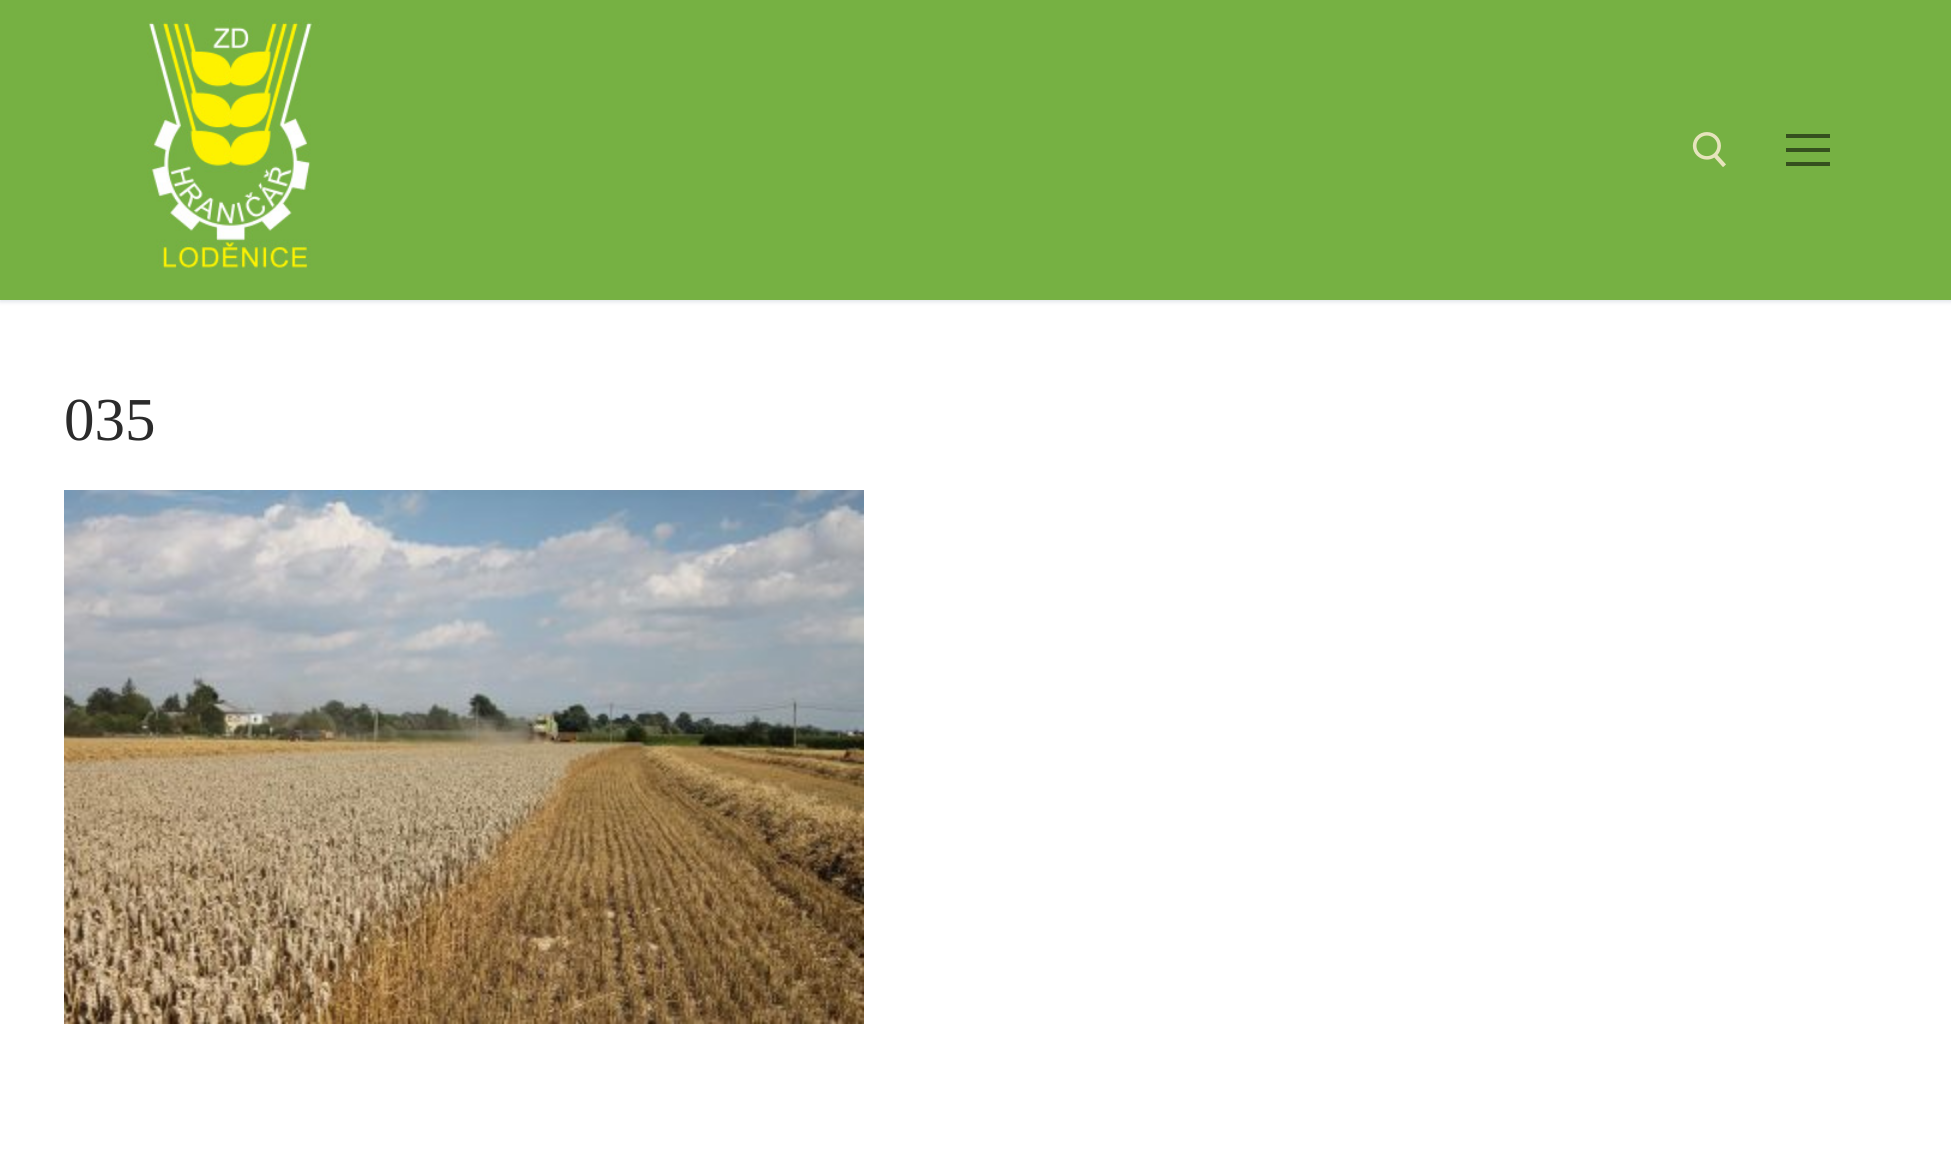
#include <cairo.h>
#include <math.h>
#include <stddef.h>

static cairo_t *ctx;

static void use_color(int r, int g, int b) {
    cairo_set_source_rgb(ctx, r / 255.0, g / 255.0, b / 255.0);
}

static void round_rect(double x, double y, double w, double h, double r) {
    cairo_new_sub_path(ctx);
    cairo_arc(ctx, x + w - r, y + h - r, r, 0, M_PI / 2);
    cairo_arc(ctx, x + r, y + h - r, r, M_PI / 2, M_PI);
    cairo_arc(ctx, x + r, y + r, r, M_PI, 1.5 * M_PI);
    cairo_arc(ctx, x + w - r, y + r, r, 1.5 * M_PI, 2 * M_PI);
    cairo_close_path(ctx);
}

static void shadow(double x, double y, double w, double h, double r, double blur, double alpha) {
    cairo_push_group_with_content(ctx, CAIRO_CONTENT_ALPHA);
    cairo_set_operator(ctx, CAIRO_OPERATOR_SOURCE);
    for (int i = 15; i >= -15 && fmin(w, h) + blur * i / 3 > 0; i -= 2) {
        double e = blur * i / 6;
        cairo_set_source_rgba(ctx, 0, 0, 0, alpha * erfc((i - 1) / 8.5) / 2);
        round_rect(x - e, y - e, w + 2 * e, h + 2 * e, fmax(0, fmin(r + e + blur * .6, fmin(w, h) / 2 + e)));
        cairo_fill(ctx);
    }
    cairo_pattern_t *soft = cairo_pop_group(ctx);
    cairo_mask(ctx, soft);
    cairo_pattern_destroy(soft);
}

static void picture(const char *path, double x, double y, double w, double h) {
    cairo_surface_t *image = cairo_image_surface_create_from_png(path);
    cairo_save(ctx);
    cairo_set_source_surface(ctx, image, x, y);
    cairo_rectangle(ctx, x, y, w, h);
    cairo_fill(ctx);
    cairo_restore(ctx);
    cairo_surface_destroy(image);
}

int main(void) {
    cairo_surface_t *surface = cairo_image_surface_create(CAIRO_FORMAT_RGB24, 1951, 1166);
    ctx = cairo_create(surface);
    cairo_font_options_t *options = cairo_font_options_create();
    cairo_font_options_set_hint_metrics(options, CAIRO_HINT_METRICS_OFF);
    cairo_font_options_set_hint_style(options, CAIRO_HINT_STYLE_NONE);
    cairo_set_font_options(ctx, options);
    cairo_set_miter_limit(ctx, 4);
    use_color(255, 255, 255);
    cairo_paint(ctx);
    use_color(225, 229, 234);
    shadow(0, 2, 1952, 300, 0, 2, 1);
    use_color(118, 177, 67);
    cairo_rectangle(ctx, 0, 0, 1951, 300);
    cairo_fill(ctx);
    picture("img1.png", 147, 19, 173, 250);
    picture("img2.png", 1692, 132, 34, 35);
    use_color(53, 80, 30);
    cairo_rectangle(ctx, 1786, 148, 44, 4);
    cairo_fill(ctx);
    cairo_rectangle(ctx, 1786, 134, 44, 4);
    cairo_fill(ctx);
    cairo_rectangle(ctx, 1786, 162, 44, 4);
    cairo_fill(ctx);
    cairo_select_font_face(ctx, "Liberation Serif", CAIRO_FONT_SLANT_NORMAL, CAIRO_FONT_WEIGHT_NORMAL);
    cairo_set_font_size(ctx, 61);
    use_color(43, 43, 43);
    cairo_move_to(ctx, 64, 440);
    cairo_show_text(ctx, "035");
    picture("img3.png", 64, 490, 800, 534);
    cairo_surface_write_to_png(surface, "result.png");
    cairo_font_options_destroy(options);
    cairo_destroy(ctx);
    cairo_surface_destroy(surface);
    return 0;
}
